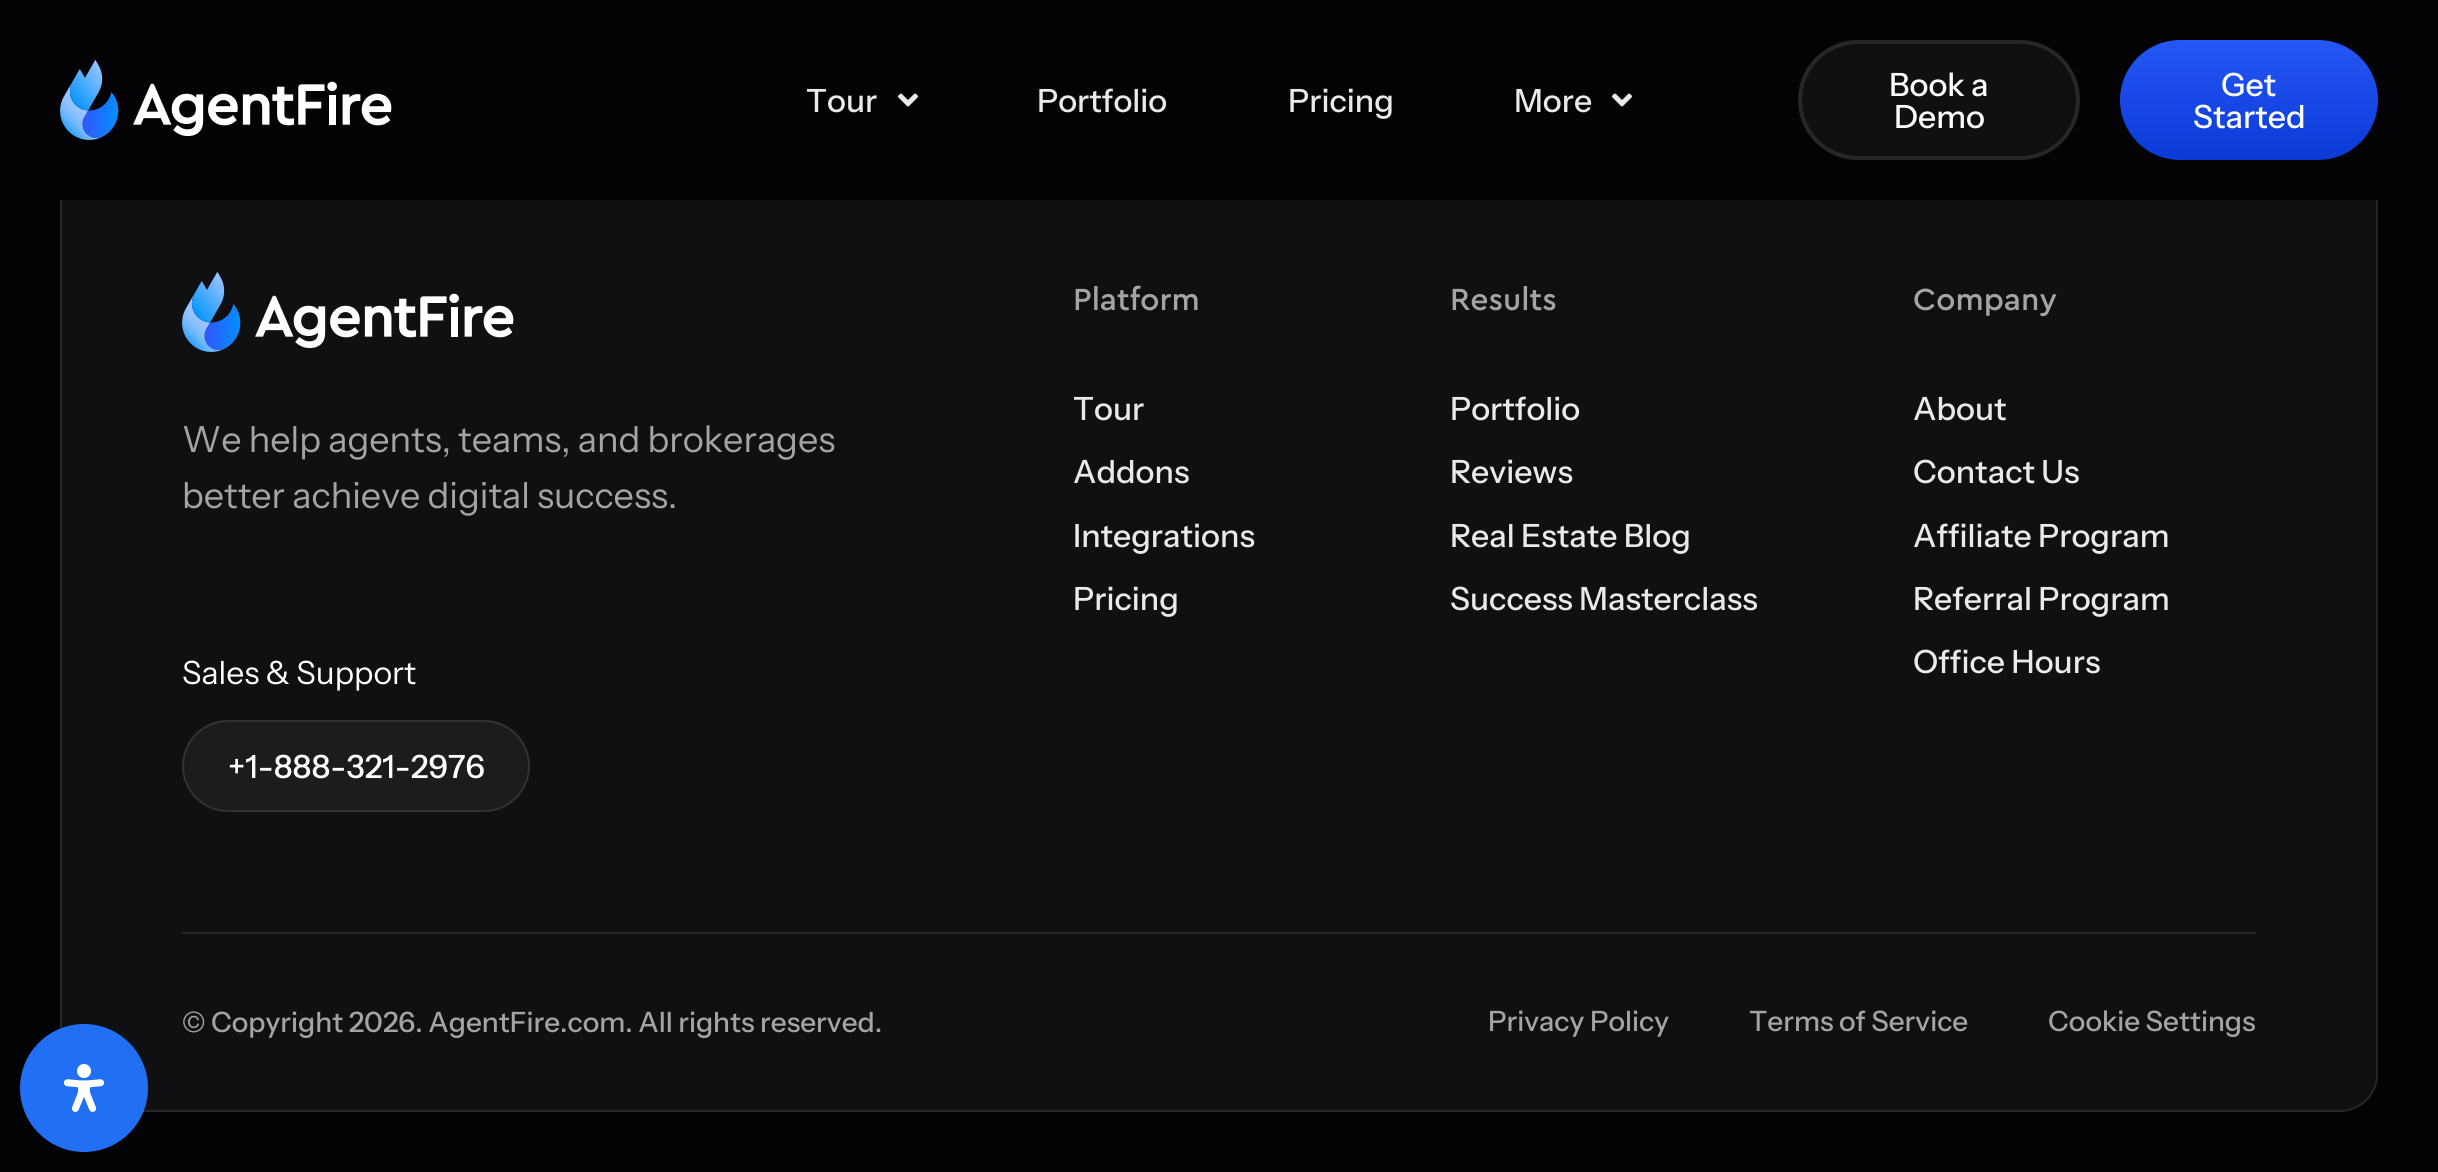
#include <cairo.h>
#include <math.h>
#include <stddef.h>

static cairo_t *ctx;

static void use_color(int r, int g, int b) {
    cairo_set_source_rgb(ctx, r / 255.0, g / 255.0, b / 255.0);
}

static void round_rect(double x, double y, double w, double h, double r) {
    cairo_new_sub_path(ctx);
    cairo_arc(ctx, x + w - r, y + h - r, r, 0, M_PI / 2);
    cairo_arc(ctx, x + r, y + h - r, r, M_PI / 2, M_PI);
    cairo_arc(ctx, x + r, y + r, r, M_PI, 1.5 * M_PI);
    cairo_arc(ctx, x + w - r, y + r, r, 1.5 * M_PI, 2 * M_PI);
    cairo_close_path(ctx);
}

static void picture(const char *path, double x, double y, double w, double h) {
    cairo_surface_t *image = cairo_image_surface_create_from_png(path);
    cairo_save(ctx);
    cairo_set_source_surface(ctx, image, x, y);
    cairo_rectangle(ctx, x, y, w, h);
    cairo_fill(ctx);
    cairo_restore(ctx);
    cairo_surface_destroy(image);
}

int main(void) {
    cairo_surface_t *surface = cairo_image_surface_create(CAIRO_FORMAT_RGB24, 2438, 1172);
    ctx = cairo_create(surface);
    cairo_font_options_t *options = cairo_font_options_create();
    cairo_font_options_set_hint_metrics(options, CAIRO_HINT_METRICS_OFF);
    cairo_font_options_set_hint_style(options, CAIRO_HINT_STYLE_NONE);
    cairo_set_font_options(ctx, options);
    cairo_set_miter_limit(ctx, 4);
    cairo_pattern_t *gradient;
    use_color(3, 2, 5);
    cairo_paint(ctx);
    use_color(16, 15, 18);
    round_rect(60, 150, 2318, 962, 38);
    cairo_fill(ctx);
    round_rect(61, 151, 2316, 960, 37);
    cairo_set_source_rgba(ctx, 1, 1, 1, 0.1);
    cairo_stroke(ctx);
    use_color(3, 2, 5);
    cairo_rectangle(ctx, 60, 150, 2318, 50);
    cairo_fill(ctx);
    picture("img1.png", 60, 60, 332, 80);
    cairo_select_font_face(ctx, "Instrument Sans Medium", CAIRO_FONT_SLANT_NORMAL, CAIRO_FONT_WEIGHT_NORMAL);
    cairo_set_font_size(ctx, 32);
    use_color(234, 234, 234);
    cairo_move_to(ctx, 806, 112);
    cairo_show_text(ctx, "Tour");
    picture("img2.png", 898, 93, 20, 14);
    cairo_move_to(ctx, 1037, 112);
    cairo_show_text(ctx, "Portfolio");
    cairo_move_to(ctx, 1288, 112);
    cairo_show_text(ctx, "Pricing");
    cairo_move_to(ctx, 1514, 112);
    cairo_show_text(ctx, "More");
    picture("img2.png", 1612, 93, 20, 14);
    use_color(16, 15, 18);
    round_rect(1798, 40, 282, 120, 60);
    cairo_fill(ctx);
    round_rect(1800, 42, 278, 116, 58);
    cairo_set_source_rgba(ctx, 1, 1, 1, 0.1);
    cairo_set_line_width(ctx, 4);
    cairo_stroke(ctx);
    use_color(255, 255, 255);
    cairo_move_to(ctx, 1889, 96);
    cairo_show_text(ctx, "Book a");
    cairo_move_to(ctx, 1894, 128);
    cairo_show_text(ctx, "Demo");
    gradient = cairo_pattern_create_linear(2249, 40, 2249, 160);
    cairo_pattern_add_color_stop_rgba(gradient, 0, 0.145, 0.341, 0.961, 1);
    cairo_pattern_add_color_stop_rgba(gradient, 1, 0.039, 0.227, 0.839, 1);
    cairo_set_source(ctx, gradient);
    cairo_pattern_destroy(gradient);
    round_rect(2120, 40, 258, 120, 60);
    cairo_fill(ctx);
    use_color(255, 255, 255);
    cairo_move_to(ctx, 2221, 96);
    cairo_show_text(ctx, "Get");
    cairo_move_to(ctx, 2193, 128);
    cairo_show_text(ctx, "Started");
    picture("img3.png", 182, 272, 332, 80);
    cairo_select_font_face(ctx, "Instrument Sans", CAIRO_FONT_SLANT_NORMAL, CAIRO_FONT_WEIGHT_NORMAL);
    cairo_set_font_size(ctx, 36);
    use_color(165, 164, 165);
    cairo_move_to(ctx, 182, 452);
    cairo_show_text(ctx, "We help agents, teams, and brokerages");
    cairo_move_to(ctx, 182, 508);
    cairo_show_text(ctx, "better achieve digital success.");
    cairo_set_font_size(ctx, 32);
    use_color(255, 255, 255);
    cairo_move_to(ctx, 182, 684);
    cairo_show_text(ctx, "Sales & Support");
    use_color(28, 27, 30);
    round_rect(182, 720, 348, 92, 46);
    cairo_fill(ctx);
    round_rect(183, 721, 346, 90, 45);
    cairo_set_source_rgba(ctx, 1, 1, 1, 0.1);
    cairo_set_line_width(ctx, 2);
    cairo_stroke(ctx);
    cairo_select_font_face(ctx, "Instrument Sans Medium", CAIRO_FONT_SLANT_NORMAL, CAIRO_FONT_WEIGHT_NORMAL);
    use_color(255, 255, 255);
    cairo_move_to(ctx, 228, 778);
    cairo_show_text(ctx, "+1-888-321-2976");
    cairo_select_font_face(ctx, "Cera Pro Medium", CAIRO_FONT_SLANT_NORMAL, CAIRO_FONT_WEIGHT_NORMAL);
    use_color(165, 164, 165);
    cairo_move_to(ctx, 1073, 310);
    cairo_show_text(ctx, "Platform");
    cairo_select_font_face(ctx, "Instrument Sans Medium", CAIRO_FONT_SLANT_NORMAL, CAIRO_FONT_WEIGHT_NORMAL);
    use_color(234, 234, 234);
    cairo_move_to(ctx, 1073, 420);
    cairo_show_text(ctx, "Tour");
    cairo_move_to(ctx, 1073, 483);
    cairo_show_text(ctx, "Addons");
    cairo_move_to(ctx, 1073, 547);
    cairo_show_text(ctx, "Integrations");
    cairo_move_to(ctx, 1073, 610);
    cairo_show_text(ctx, "Pricing");
    cairo_select_font_face(ctx, "Cera Pro Medium", CAIRO_FONT_SLANT_NORMAL, CAIRO_FONT_WEIGHT_NORMAL);
    use_color(165, 164, 165);
    cairo_move_to(ctx, 1450, 310);
    cairo_show_text(ctx, "Results");
    cairo_select_font_face(ctx, "Instrument Sans Medium", CAIRO_FONT_SLANT_NORMAL, CAIRO_FONT_WEIGHT_NORMAL);
    use_color(234, 234, 234);
    cairo_move_to(ctx, 1450, 420);
    cairo_show_text(ctx, "Portfolio");
    cairo_move_to(ctx, 1450, 483);
    cairo_show_text(ctx, "Reviews");
    cairo_move_to(ctx, 1450, 547);
    cairo_show_text(ctx, "Real Estate Blog");
    cairo_move_to(ctx, 1450, 610);
    cairo_show_text(ctx, "Success Masterclass");
    cairo_select_font_face(ctx, "Cera Pro Medium", CAIRO_FONT_SLANT_NORMAL, CAIRO_FONT_WEIGHT_NORMAL);
    use_color(165, 164, 165);
    cairo_move_to(ctx, 1913, 310);
    cairo_show_text(ctx, "Company");
    cairo_select_font_face(ctx, "Instrument Sans Medium", CAIRO_FONT_SLANT_NORMAL, CAIRO_FONT_WEIGHT_NORMAL);
    use_color(234, 234, 234);
    cairo_move_to(ctx, 1913, 420);
    cairo_show_text(ctx, "About");
    cairo_move_to(ctx, 1913, 483);
    cairo_show_text(ctx, "Contact Us");
    cairo_move_to(ctx, 1913, 547);
    cairo_show_text(ctx, "Affiliate Program");
    cairo_move_to(ctx, 1913, 610);
    cairo_show_text(ctx, "Referral Program");
    cairo_move_to(ctx, 1913, 673);
    cairo_show_text(ctx, "Office Hours");
    use_color(40, 39, 42);
    cairo_rectangle(ctx, 182, 932, 2074, 2);
    cairo_fill(ctx);
    cairo_set_font_size(ctx, 28);
    use_color(165, 164, 165);
    cairo_move_to(ctx, 182, 1032);
    cairo_show_text(ctx, "© Copyright 2026. AgentFire.com. All rights reserved.");
    cairo_move_to(ctx, 1488, 1031);
    cairo_show_text(ctx, "Privacy Policy");
    cairo_move_to(ctx, 1749, 1031);
    cairo_show_text(ctx, "Terms of Service");
    cairo_move_to(ctx, 2048, 1031);
    cairo_show_text(ctx, "Cookie Settings");
    use_color(33, 111, 243);
    cairo_new_path(ctx);
    cairo_arc(ctx, 84, 1088, 64, 0, 2 * M_PI);
    cairo_fill(ctx);
    picture("img4.png", 63, 1064, 42, 48);
    cairo_surface_write_to_png(surface, "result.png");
    cairo_font_options_destroy(options);
    cairo_destroy(ctx);
    cairo_surface_destroy(surface);
    return 0;
}
